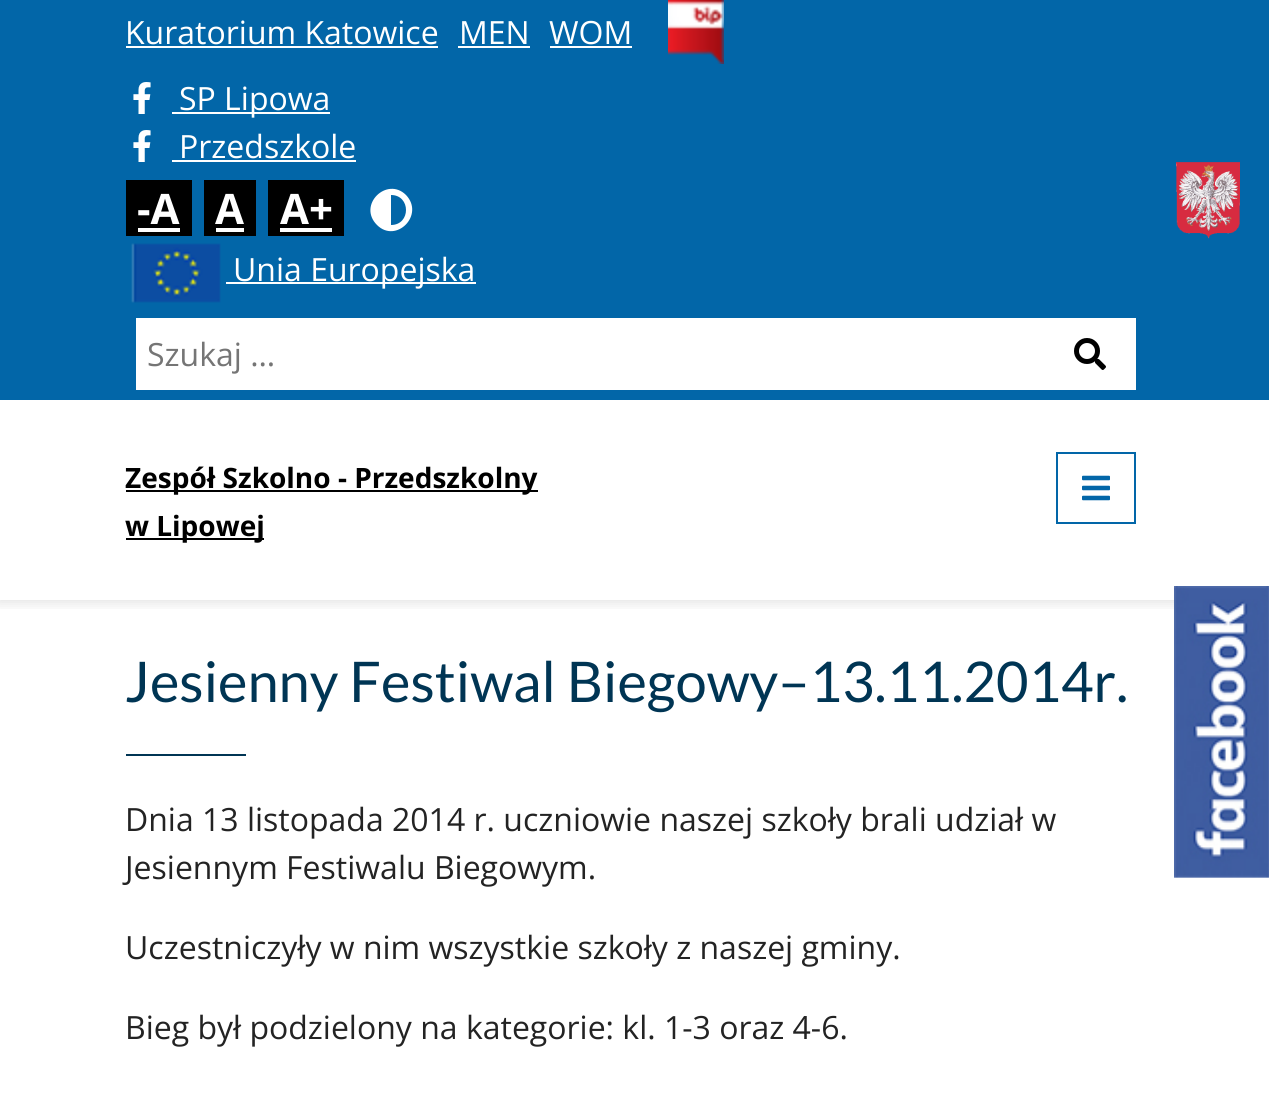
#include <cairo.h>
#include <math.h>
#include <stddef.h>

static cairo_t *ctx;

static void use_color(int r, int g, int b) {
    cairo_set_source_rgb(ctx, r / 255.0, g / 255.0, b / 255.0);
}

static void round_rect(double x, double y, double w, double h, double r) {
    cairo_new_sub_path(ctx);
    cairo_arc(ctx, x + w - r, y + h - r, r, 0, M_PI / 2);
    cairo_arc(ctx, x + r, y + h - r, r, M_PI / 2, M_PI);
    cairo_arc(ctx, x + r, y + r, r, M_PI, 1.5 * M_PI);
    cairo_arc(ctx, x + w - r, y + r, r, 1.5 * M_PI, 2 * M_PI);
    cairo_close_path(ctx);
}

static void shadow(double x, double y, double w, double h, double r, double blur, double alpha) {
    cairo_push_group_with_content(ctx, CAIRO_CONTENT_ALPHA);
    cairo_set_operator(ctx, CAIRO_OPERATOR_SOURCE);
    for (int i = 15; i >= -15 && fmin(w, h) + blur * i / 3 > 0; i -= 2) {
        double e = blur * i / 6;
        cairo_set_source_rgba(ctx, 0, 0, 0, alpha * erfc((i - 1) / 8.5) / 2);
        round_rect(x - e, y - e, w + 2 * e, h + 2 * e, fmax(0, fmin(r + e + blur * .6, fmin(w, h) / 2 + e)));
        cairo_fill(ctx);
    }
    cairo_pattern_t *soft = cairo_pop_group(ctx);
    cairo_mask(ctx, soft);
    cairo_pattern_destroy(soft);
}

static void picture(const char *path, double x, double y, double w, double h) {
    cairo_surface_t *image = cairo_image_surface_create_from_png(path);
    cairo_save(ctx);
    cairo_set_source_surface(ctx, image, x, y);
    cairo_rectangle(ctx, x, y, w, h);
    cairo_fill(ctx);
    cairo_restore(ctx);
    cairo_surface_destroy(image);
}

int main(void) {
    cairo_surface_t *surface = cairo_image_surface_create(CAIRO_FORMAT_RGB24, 1269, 1105);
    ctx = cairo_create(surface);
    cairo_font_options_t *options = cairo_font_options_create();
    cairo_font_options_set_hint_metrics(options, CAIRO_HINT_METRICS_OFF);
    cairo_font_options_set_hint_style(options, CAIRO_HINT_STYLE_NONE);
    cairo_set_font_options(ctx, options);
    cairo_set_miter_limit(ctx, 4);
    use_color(255, 255, 255);
    cairo_paint(ctx);
    cairo_save(ctx);
    cairo_rectangle(ctx, 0, 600, 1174, 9);
    cairo_clip(ctx);
    use_color(0, 0, 0);
    shadow(-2, 0, 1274, 604, 0, 6, 0.1);
    cairo_restore(ctx);
    use_color(2, 102, 168);
    cairo_rectangle(ctx, 0, 0, 1269, 400);
    cairo_fill(ctx);
    cairo_select_font_face(ctx, "Open Sans", CAIRO_FONT_SLANT_NORMAL, CAIRO_FONT_WEIGHT_NORMAL);
    cairo_set_font_size(ctx, 32);
    use_color(255, 255, 255);
    cairo_move_to(ctx, 125, 44);
    cairo_show_text(ctx, "Kuratorium Katowice");
    cairo_rectangle(ctx, 126, 46, 312, 2);
    cairo_fill(ctx);
    cairo_move_to(ctx, 459, 44);
    cairo_show_text(ctx, "MEN");
    cairo_rectangle(ctx, 458, 46, 72, 2);
    cairo_fill(ctx);
    cairo_move_to(ctx, 549, 44);
    cairo_show_text(ctx, "WOM");
    cairo_rectangle(ctx, 550, 46, 82, 2);
    cairo_fill(ctx);
    picture("img1.png", 668, 0, 56, 64);
    picture("img2.png", 133, 82, 18, 32);
    cairo_rectangle(ctx, 172, 112, 158, 2);
    cairo_fill(ctx);
    cairo_move_to(ctx, 179, 110);
    cairo_show_text(ctx, "SP Lipowa");
    picture("img2.png", 133, 130, 18, 32);
    cairo_move_to(ctx, 179, 158);
    cairo_show_text(ctx, "Przedszkole");
    cairo_rectangle(ctx, 172, 160, 184, 2);
    cairo_fill(ctx);
    use_color(0, 0, 0);
    cairo_rectangle(ctx, 126, 180, 66, 56);
    cairo_fill(ctx);
    cairo_select_font_face(ctx, "Open Sans", CAIRO_FONT_SLANT_NORMAL, CAIRO_FONT_WEIGHT_BOLD);
    cairo_set_font_size(ctx, 42);
    use_color(255, 255, 255);
    cairo_move_to(ctx, 137, 224);
    cairo_show_text(ctx, "-A");
    cairo_rectangle(ctx, 138, 228, 42, 4);
    cairo_fill(ctx);
    use_color(0, 0, 0);
    cairo_rectangle(ctx, 204, 180, 52, 56);
    cairo_fill(ctx);
    use_color(255, 255, 255);
    cairo_move_to(ctx, 215, 224);
    cairo_show_text(ctx, "A");
    cairo_rectangle(ctx, 216, 228, 28, 4);
    cairo_fill(ctx);
    use_color(0, 0, 0);
    cairo_rectangle(ctx, 268, 180, 76, 56);
    cairo_fill(ctx);
    use_color(255, 255, 255);
    cairo_move_to(ctx, 280, 224);
    cairo_show_text(ctx, "A+");
    cairo_rectangle(ctx, 280, 228, 52, 4);
    cairo_fill(ctx);
    cairo_new_path(ctx);
    cairo_move_to(ctx, 377, 225);
    cairo_curve_to(ctx, 357, 205, 387, 176, 406, 195);
    cairo_curve_to(ctx, 425, 215, 396, 244, 377, 225);
    cairo_close_path(ctx);
    cairo_move_to(ctx, 391, 225);
    cairo_curve_to(ctx, 411, 225, 411, 195, 391, 195);
    cairo_close_path(ctx);
    cairo_fill(ctx);
    picture("img3.png", 131, 243, 90, 60);
    cairo_rectangle(ctx, 226, 282, 250, 2);
    cairo_fill(ctx);
    cairo_select_font_face(ctx, "Open Sans", CAIRO_FONT_SLANT_NORMAL, CAIRO_FONT_WEIGHT_NORMAL);
    cairo_set_font_size(ctx, 32);
    cairo_move_to(ctx, 233, 281);
    cairo_show_text(ctx, "Unia Europejska");
    cairo_rectangle(ctx, 136, 318, 1000, 72);
    cairo_fill(ctx);
    use_color(117, 117, 117);
    cairo_move_to(ctx, 147, 366);
    cairo_show_text(ctx, "Szukaj …");
    picture("img4.png", 1074, 338, 32, 32);
    picture("img5.png", 1176, 162, 64, 77);
    use_color(0, 0, 0);
    cairo_rectangle(ctx, 126, 490, 412, 2);
    cairo_fill(ctx);
    cairo_select_font_face(ctx, "Open Sans", CAIRO_FONT_SLANT_NORMAL, CAIRO_FONT_WEIGHT_BOLD);
    cairo_set_font_size(ctx, 28);
    cairo_move_to(ctx, 125, 488);
    cairo_show_text(ctx, "Zespół Szkolno - Przedszkolny");
    cairo_rectangle(ctx, 126, 538, 138, 2);
    cairo_fill(ctx);
    cairo_move_to(ctx, 125, 536);
    cairo_show_text(ctx, "w Lipowej");
    cairo_rectangle(ctx, 1057, 453, 78, 70);
    use_color(2, 102, 168);
    cairo_stroke(ctx);
    picture("img6.png", 1082, 475, 28, 26);
    cairo_select_font_face(ctx, "Lato", CAIRO_FONT_SLANT_NORMAL, CAIRO_FONT_WEIGHT_NORMAL);
    cairo_set_font_size(ctx, 56.1);
    use_color(0, 53, 84);
    cairo_move_to(ctx, 125, 702);
    cairo_show_text(ctx, "Jesienny Festiwal Biegowy–13.11.2014r.");
    cairo_rectangle(ctx, 126, 754, 120, 2);
    cairo_fill(ctx);
    cairo_select_font_face(ctx, "Open Sans", CAIRO_FONT_SLANT_NORMAL, CAIRO_FONT_WEIGHT_NORMAL);
    cairo_set_font_size(ctx, 32);
    use_color(35, 35, 35);
    cairo_move_to(ctx, 125, 831);
    cairo_show_text(ctx, "Dnia 13 listopada 2014 r. uczniowie naszej szkoły brali udział w");
    cairo_move_to(ctx, 125, 879);
    cairo_show_text(ctx, "Jesiennym Festiwalu Biegowym.");
    cairo_move_to(ctx, 125, 959);
    cairo_show_text(ctx, "Uczestniczyły w nim wszystkie szkoły z naszej gminy.");
    cairo_move_to(ctx, 125, 1039);
    cairo_show_text(ctx, "Bieg był podzielony na kategorie: kl. 1-3 oraz 4-6.");
    picture("img7.png", 1174, 586, 95, 292);
    cairo_surface_write_to_png(surface, "result.png");
    cairo_font_options_destroy(options);
    cairo_destroy(ctx);
    cairo_surface_destroy(surface);
    return 0;
}
